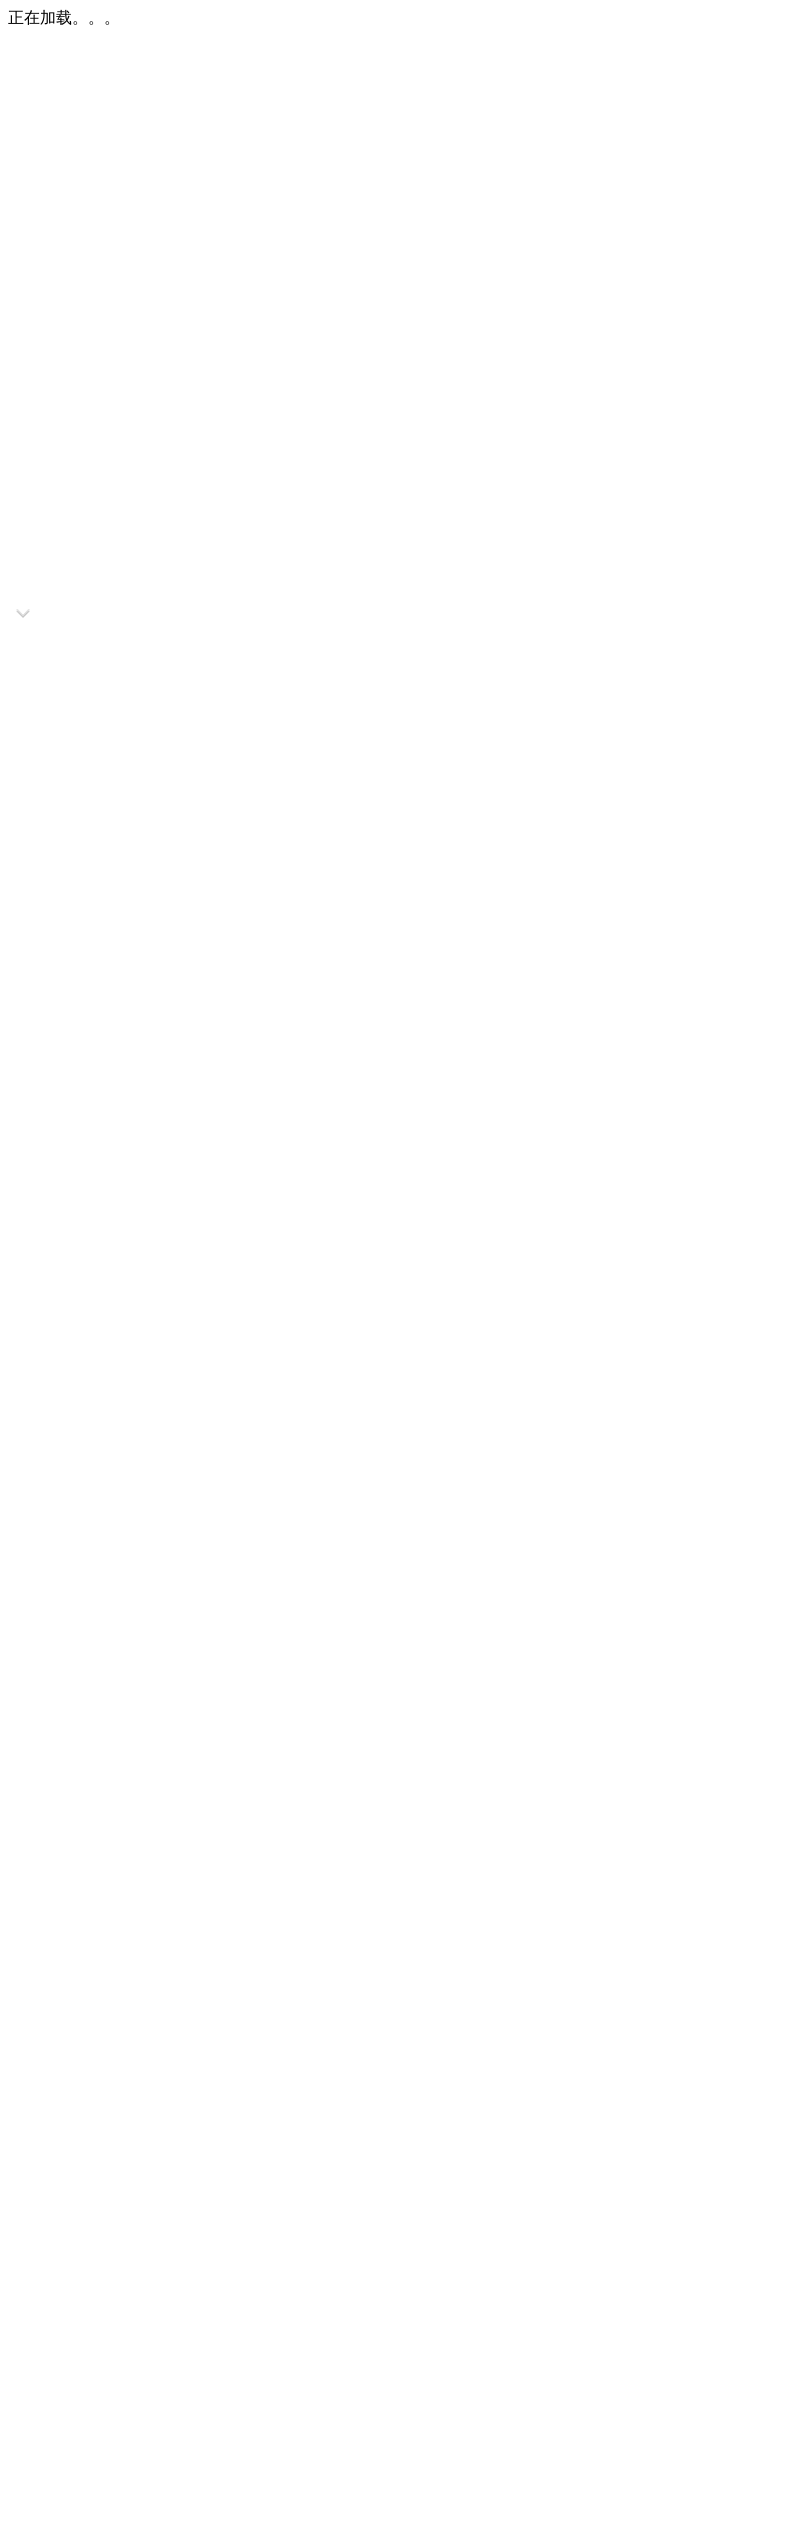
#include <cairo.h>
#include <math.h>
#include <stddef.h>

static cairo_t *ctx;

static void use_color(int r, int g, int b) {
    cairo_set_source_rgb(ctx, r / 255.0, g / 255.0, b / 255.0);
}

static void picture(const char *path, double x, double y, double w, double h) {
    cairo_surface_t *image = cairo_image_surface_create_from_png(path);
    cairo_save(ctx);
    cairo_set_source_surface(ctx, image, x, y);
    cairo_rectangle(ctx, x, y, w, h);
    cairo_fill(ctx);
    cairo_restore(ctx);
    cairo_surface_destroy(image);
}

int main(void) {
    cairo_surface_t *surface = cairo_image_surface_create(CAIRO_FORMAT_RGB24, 812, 2532);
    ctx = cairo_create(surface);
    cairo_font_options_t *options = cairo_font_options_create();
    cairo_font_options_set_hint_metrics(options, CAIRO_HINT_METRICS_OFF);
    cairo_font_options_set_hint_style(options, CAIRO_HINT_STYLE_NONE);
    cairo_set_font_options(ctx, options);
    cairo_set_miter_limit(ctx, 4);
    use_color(255, 255, 255);
    cairo_paint(ctx);
    cairo_select_font_face(ctx, "WenQuanYi Zen Hei Medium", CAIRO_FONT_SLANT_NORMAL, CAIRO_FONT_WEIGHT_NORMAL);
    cairo_set_font_size(ctx, 16);
    use_color(0, 0, 0);
    cairo_move_to(ctx, 8, 23);
    cairo_show_text(ctx, "正在加载。。。");
    picture("img1.png", 16, 609, 14, 9);
    cairo_surface_write_to_png(surface, "result.png");
    cairo_font_options_destroy(options);
    cairo_destroy(ctx);
    cairo_surface_destroy(surface);
    return 0;
}
